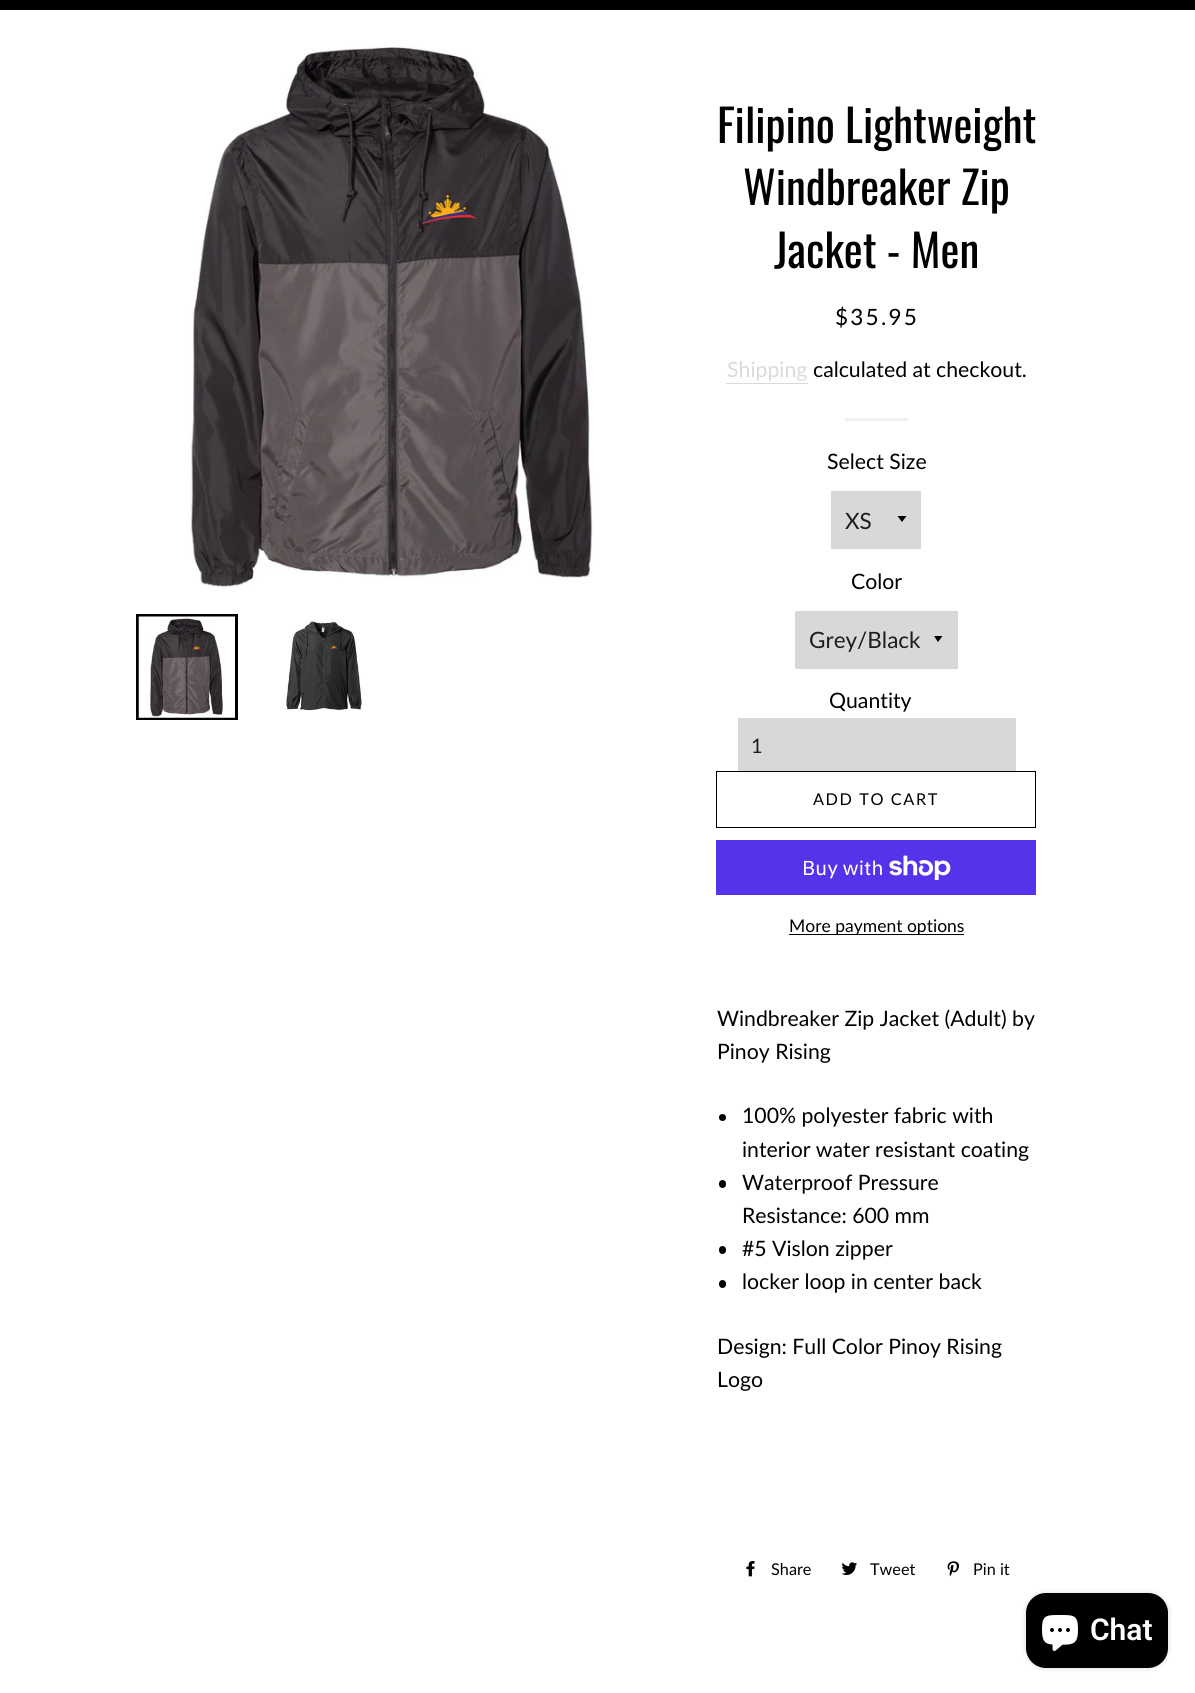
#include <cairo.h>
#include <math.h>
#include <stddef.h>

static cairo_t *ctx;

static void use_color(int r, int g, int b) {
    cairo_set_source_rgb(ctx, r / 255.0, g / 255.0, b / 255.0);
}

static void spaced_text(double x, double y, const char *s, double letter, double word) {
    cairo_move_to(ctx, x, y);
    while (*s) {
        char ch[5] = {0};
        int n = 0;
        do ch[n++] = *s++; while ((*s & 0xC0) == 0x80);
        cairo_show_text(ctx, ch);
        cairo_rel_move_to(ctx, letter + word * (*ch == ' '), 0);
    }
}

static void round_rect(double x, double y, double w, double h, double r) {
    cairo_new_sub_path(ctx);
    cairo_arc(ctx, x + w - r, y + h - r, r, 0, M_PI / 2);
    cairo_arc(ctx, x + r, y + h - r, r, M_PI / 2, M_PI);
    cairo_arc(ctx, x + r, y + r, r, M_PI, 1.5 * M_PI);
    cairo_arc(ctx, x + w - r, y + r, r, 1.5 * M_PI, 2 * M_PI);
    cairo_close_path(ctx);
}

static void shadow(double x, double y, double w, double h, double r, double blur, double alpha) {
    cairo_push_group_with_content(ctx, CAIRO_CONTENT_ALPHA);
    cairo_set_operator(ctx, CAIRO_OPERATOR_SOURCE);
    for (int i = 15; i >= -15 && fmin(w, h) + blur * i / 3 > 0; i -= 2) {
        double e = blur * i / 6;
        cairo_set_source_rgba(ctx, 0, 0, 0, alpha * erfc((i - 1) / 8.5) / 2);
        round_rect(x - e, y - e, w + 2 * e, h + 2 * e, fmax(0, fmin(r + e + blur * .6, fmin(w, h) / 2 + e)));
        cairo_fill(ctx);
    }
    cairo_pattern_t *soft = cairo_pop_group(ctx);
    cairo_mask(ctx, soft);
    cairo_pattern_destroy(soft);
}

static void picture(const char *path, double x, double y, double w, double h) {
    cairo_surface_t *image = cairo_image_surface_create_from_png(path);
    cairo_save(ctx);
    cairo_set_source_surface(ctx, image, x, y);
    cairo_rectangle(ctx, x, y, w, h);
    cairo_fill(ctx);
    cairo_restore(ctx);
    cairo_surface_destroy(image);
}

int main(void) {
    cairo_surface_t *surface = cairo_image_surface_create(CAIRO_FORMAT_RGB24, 1195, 1693);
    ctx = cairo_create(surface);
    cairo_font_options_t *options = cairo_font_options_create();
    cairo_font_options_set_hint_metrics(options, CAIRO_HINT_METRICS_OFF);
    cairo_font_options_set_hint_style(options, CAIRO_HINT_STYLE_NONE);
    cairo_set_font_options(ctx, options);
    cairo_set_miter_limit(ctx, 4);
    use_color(255, 255, 255);
    cairo_paint(ctx);
    use_color(0, 0, 0);
    cairo_rectangle(ctx, 0, 0, 1195, 10);
    cairo_fill(ctx);
    picture("img1.png", 189, 46, 404, 542);
    cairo_rectangle(ctx, 137.5, 615.5, 99, 103);
    cairo_set_line_width(ctx, 3);
    cairo_stroke(ctx);
    picture("img2.png", 138, 616, 97, 102);
    picture("img3.png", 286, 621, 76, 90);
    cairo_select_font_face(ctx, "Oswald", CAIRO_FONT_SLANT_NORMAL, CAIRO_FONT_WEIGHT_NORMAL);
    cairo_set_font_size(ctx, 45);
    cairo_move_to(ctx, 717, 143);
    cairo_show_text(ctx, "Filipino Lightweight");
    cairo_move_to(ctx, 743, 205);
    cairo_show_text(ctx, "Windbreaker Zip");
    cairo_move_to(ctx, 774, 268);
    cairo_show_text(ctx, "Jacket - Men");
    cairo_select_font_face(ctx, "Lato", CAIRO_FONT_SLANT_NORMAL, CAIRO_FONT_WEIGHT_NORMAL);
    cairo_set_font_size(ctx, 22.5);
    spaced_text(835, 325, "$35.95", 2.25, 0);
    cairo_set_font_size(ctx, 21.25);
    use_color(218, 217, 221);
    cairo_move_to(ctx, 727, 377);
    cairo_show_text(ctx, "Shipping");
    cairo_rectangle(ctx, 726, 383, 82, 1);
    cairo_fill(ctx);
    use_color(0, 0, 0);
    cairo_move_to(ctx, 813, 377);
    cairo_show_text(ctx, "calculated at checkout.");
    use_color(240, 239, 241);
    cairo_rectangle(ctx, 845, 418, 63, 3);
    cairo_fill(ctx);
    use_color(0, 0, 0);
    cairo_move_to(ctx, 827, 469);
    cairo_show_text(ctx, "Select Size");
    use_color(216, 215, 218);
    cairo_rectangle(ctx, 831, 491, 90, 58);
    cairo_fill(ctx);
    use_color(0, 0, 0);
    cairo_new_path(ctx);
    cairo_move_to(ctx, 897.5, 516);
    cairo_line_to(ctx, 902, 522);
    cairo_line_to(ctx, 906.5, 516);
    cairo_close_path(ctx);
    cairo_fill(ctx);
    cairo_set_font_size(ctx, 22.5);
    use_color(28, 29, 29);
    cairo_move_to(ctx, 845, 529);
    cairo_show_text(ctx, "XS");
    cairo_set_font_size(ctx, 21.25);
    use_color(0, 0, 0);
    cairo_move_to(ctx, 851, 589);
    cairo_show_text(ctx, "Color");
    use_color(216, 215, 218);
    cairo_rectangle(ctx, 795, 611, 163, 58);
    cairo_fill(ctx);
    use_color(0, 0, 0);
    cairo_new_path(ctx);
    cairo_move_to(ctx, 934, 636);
    cairo_line_to(ctx, 938, 642);
    cairo_line_to(ctx, 942.5, 636);
    cairo_close_path(ctx);
    cairo_fill(ctx);
    cairo_set_font_size(ctx, 22.5);
    use_color(28, 29, 29);
    cairo_move_to(ctx, 809, 648);
    cairo_show_text(ctx, "Grey/Black");
    cairo_set_font_size(ctx, 21.25);
    use_color(0, 0, 0);
    cairo_move_to(ctx, 829, 708);
    cairo_show_text(ctx, "Quantity");
    use_color(216, 215, 218);
    cairo_rectangle(ctx, 738, 718, 278, 53);
    cairo_fill(ctx);
    cairo_set_font_size(ctx, 20);
    use_color(28, 29, 29);
    spaced_text(751, 753, "1", 2, 0);
    cairo_rectangle(ctx, 716.5, 771.5, 319, 56);
    use_color(0, 0, 0);
    cairo_set_line_width(ctx, 1);
    cairo_stroke(ctx);
    cairo_set_font_size(ctx, 16.25);
    spaced_text(813, 805, "ADD TO CART", 1.6, 0);
    use_color(84, 51, 235);
    cairo_rectangle(ctx, 716, 840, 320, 55);
    cairo_fill(ctx);
    cairo_select_font_face(ctx, "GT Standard", CAIRO_FONT_SLANT_NORMAL, CAIRO_FONT_WEIGHT_NORMAL);
    cairo_set_font_size(ctx, 20);
    use_color(255, 255, 255);
    cairo_move_to(ctx, 802, 875);
    cairo_show_text(ctx, "Buy with");
    picture("img4.png", 889, 855, 62, 25);
    use_color(0, 0, 0);
    cairo_rectangle(ctx, 789, 934, 175, 1);
    cairo_fill(ctx);
    cairo_select_font_face(ctx, "Lato", CAIRO_FONT_SLANT_NORMAL, CAIRO_FONT_WEIGHT_NORMAL);
    cairo_set_font_size(ctx, 17.5);
    cairo_move_to(ctx, 789, 932);
    cairo_show_text(ctx, "More payment options");
    cairo_set_font_size(ctx, 21.25);
    cairo_move_to(ctx, 717, 1026);
    cairo_show_text(ctx, "Windbreaker Zip Jacket (Adult) by");
    cairo_move_to(ctx, 717, 1059);
    cairo_show_text(ctx, "Pinoy Rising");
    cairo_new_path(ctx);
    cairo_arc(ctx, 722.5, 1117.5, 3.5, 0, 2 * M_PI);
    cairo_fill(ctx);
    cairo_move_to(ctx, 742, 1123);
    cairo_show_text(ctx, "100% polyester fabric with");
    cairo_move_to(ctx, 742, 1157);
    cairo_show_text(ctx, "interior water resistant coating");
    round_rect(719, 1180, 7, 8, 3.5);
    cairo_fill(ctx);
    cairo_move_to(ctx, 742, 1190);
    cairo_show_text(ctx, "Waterproof Pressure");
    cairo_move_to(ctx, 742, 1223);
    cairo_show_text(ctx, "Resistance: 600 mm");
    round_rect(719, 1246, 7, 8, 3.5);
    cairo_fill(ctx);
    cairo_move_to(ctx, 742, 1256);
    cairo_show_text(ctx, "#5 Vislon zipper");
    round_rect(719, 1280, 7, 8, 3.5);
    cairo_fill(ctx);
    cairo_move_to(ctx, 742, 1289);
    cairo_show_text(ctx, "locker loop in center back");
    cairo_move_to(ctx, 717, 1354);
    cairo_show_text(ctx, "Design: Full Color Pinoy Rising");
    cairo_move_to(ctx, 717, 1387);
    cairo_show_text(ctx, "Logo");
    picture("img5.png", 746, 1561, 9, 16);
    cairo_set_font_size(ctx, 16.25);
    cairo_move_to(ctx, 771, 1575);
    cairo_show_text(ctx, "Share");
    picture("img6.png", 841, 1562, 16, 13);
    cairo_move_to(ctx, 870, 1575);
    cairo_show_text(ctx, "Tweet");
    picture("img7.png", 947, 1561, 12, 16);
    cairo_move_to(ctx, 973, 1575);
    cairo_show_text(ctx, "Pin it");
    use_color(0, 0, 0);
    shadow(1026, 1593, 142, 75, 20, 3, 0.15);
    use_color(0, 0, 0);
    round_rect(1026, 1593, 142, 75, 20);
    cairo_fill(ctx);
    picture("img8.png", 1042, 1615, 36, 36);
    cairo_select_font_face(ctx, "Roboto SemiBold", CAIRO_FONT_SLANT_NORMAL, CAIRO_FONT_WEIGHT_NORMAL);
    cairo_set_font_size(ctx, 30);
    use_color(255, 255, 255);
    cairo_move_to(ctx, 1090, 1640);
    cairo_show_text(ctx, "Chat");
    cairo_surface_write_to_png(surface, "result.png");
    cairo_font_options_destroy(options);
    cairo_destroy(ctx);
    cairo_surface_destroy(surface);
    return 0;
}
